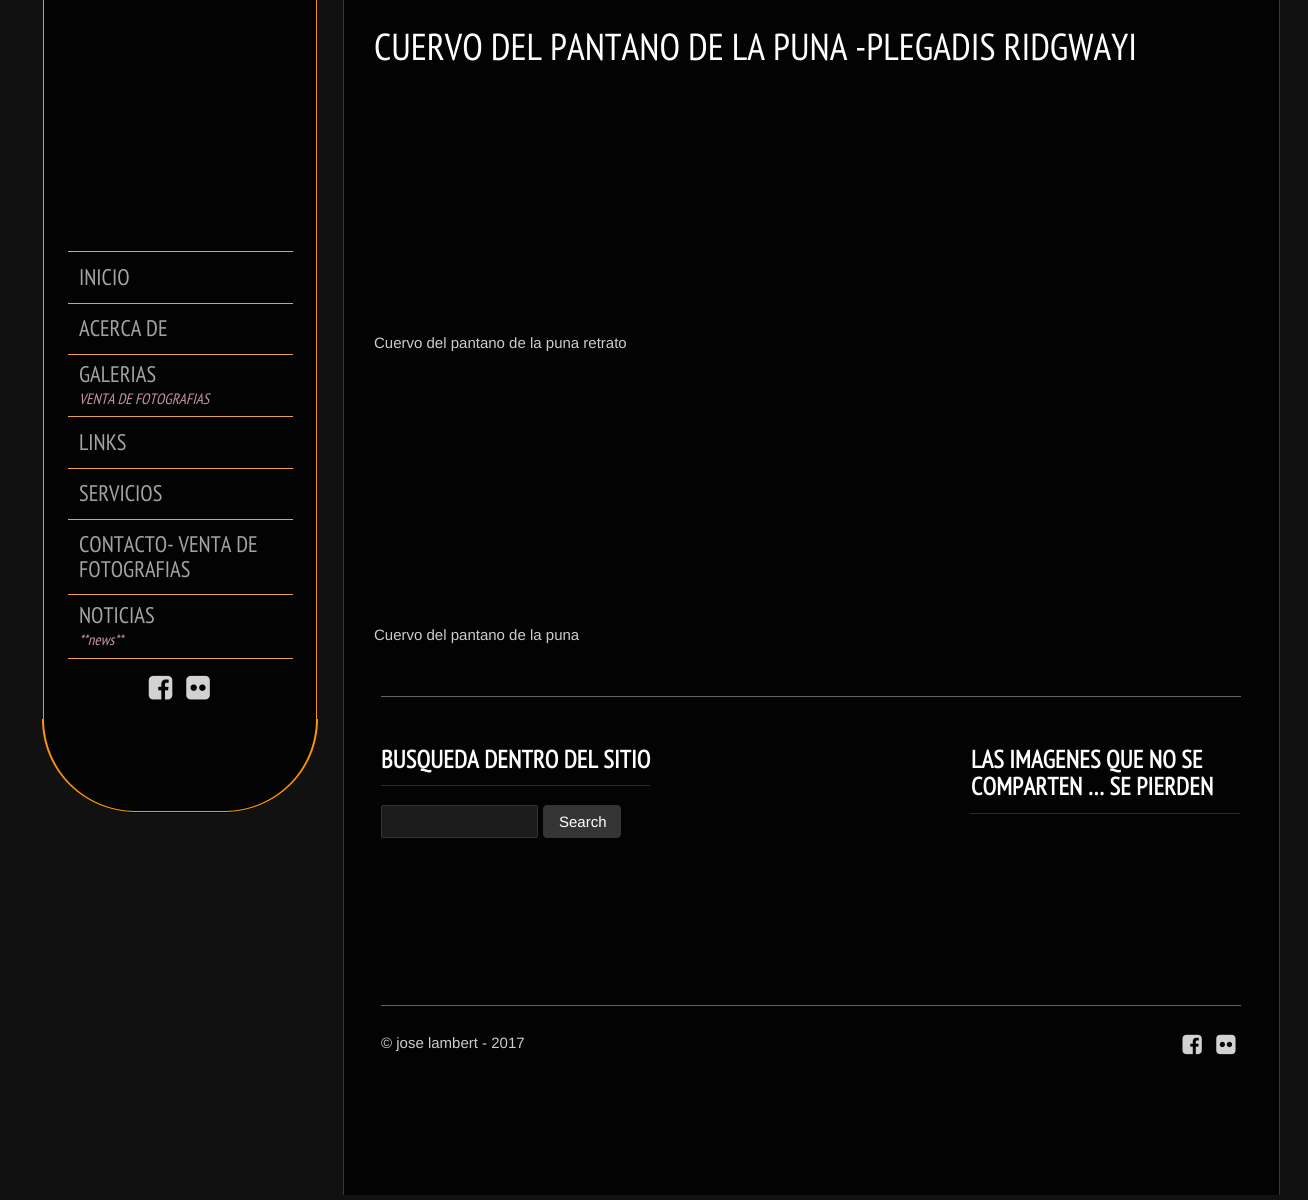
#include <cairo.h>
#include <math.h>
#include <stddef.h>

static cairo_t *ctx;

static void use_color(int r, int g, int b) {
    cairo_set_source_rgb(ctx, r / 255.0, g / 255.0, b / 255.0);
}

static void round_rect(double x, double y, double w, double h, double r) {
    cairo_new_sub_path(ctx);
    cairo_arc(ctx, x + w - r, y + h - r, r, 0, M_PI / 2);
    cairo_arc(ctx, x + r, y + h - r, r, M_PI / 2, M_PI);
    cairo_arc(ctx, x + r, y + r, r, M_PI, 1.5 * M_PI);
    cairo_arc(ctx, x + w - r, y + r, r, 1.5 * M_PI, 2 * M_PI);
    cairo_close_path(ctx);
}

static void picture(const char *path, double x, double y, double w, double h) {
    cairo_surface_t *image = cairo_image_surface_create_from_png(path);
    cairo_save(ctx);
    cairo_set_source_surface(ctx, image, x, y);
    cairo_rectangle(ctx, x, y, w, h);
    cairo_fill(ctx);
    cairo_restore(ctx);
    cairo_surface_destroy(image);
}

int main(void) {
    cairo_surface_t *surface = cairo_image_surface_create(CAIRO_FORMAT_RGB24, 1308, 1200);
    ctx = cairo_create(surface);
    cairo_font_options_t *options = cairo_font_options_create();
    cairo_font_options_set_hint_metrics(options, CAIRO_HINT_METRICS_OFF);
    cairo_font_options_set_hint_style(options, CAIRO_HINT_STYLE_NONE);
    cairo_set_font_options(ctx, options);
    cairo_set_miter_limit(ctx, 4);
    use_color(17, 17, 17);
    cairo_paint(ctx);
    use_color(3, 3, 3);
    cairo_rectangle(ctx, 44, 0, 274, 719);
    cairo_fill(ctx);
    use_color(252, 147, 10);
    cairo_rectangle(ctx, 316, 0, 1, 719);
    cairo_fill(ctx);
    cairo_rectangle(ctx, 43, 0, 1, 719);
    cairo_fill(ctx);
    use_color(237, 160, 83);
    cairo_rectangle(ctx, 68, 251, 225, 1);
    cairo_fill(ctx);
    cairo_rectangle(ctx, 68, 303, 225, 1);
    cairo_fill(ctx);
    cairo_select_font_face(ctx, "PT Sans Narrow", CAIRO_FONT_SLANT_NORMAL, CAIRO_FONT_WEIGHT_NORMAL);
    cairo_set_font_size(ctx, 22.5);
    use_color(163, 163, 163);
    cairo_move_to(ctx, 79, 285);
    cairo_show_text(ctx, "INICIO");
    use_color(237, 160, 83);
    cairo_rectangle(ctx, 68, 354, 225, 1);
    cairo_fill(ctx);
    use_color(163, 163, 163);
    cairo_move_to(ctx, 79, 336);
    cairo_show_text(ctx, "ACERCA DE");
    use_color(237, 160, 83);
    cairo_rectangle(ctx, 68, 416, 225, 1);
    cairo_fill(ctx);
    use_color(163, 163, 163);
    cairo_move_to(ctx, 79, 382);
    cairo_show_text(ctx, "GALERIAS");
    cairo_select_font_face(ctx, "PT Sans Narrow", CAIRO_FONT_SLANT_ITALIC, CAIRO_FONT_WEIGHT_NORMAL);
    cairo_set_font_size(ctx, 15);
    use_color(194, 148, 155);
    cairo_move_to(ctx, 79, 404);
    cairo_show_text(ctx, "VENTA DE FOTOGRAFIAS");
    use_color(237, 160, 83);
    cairo_rectangle(ctx, 68, 468, 225, 1);
    cairo_fill(ctx);
    cairo_select_font_face(ctx, "PT Sans Narrow", CAIRO_FONT_SLANT_NORMAL, CAIRO_FONT_WEIGHT_NORMAL);
    cairo_set_font_size(ctx, 22.5);
    use_color(163, 163, 163);
    cairo_move_to(ctx, 79, 450);
    cairo_show_text(ctx, "LINKS");
    use_color(237, 160, 83);
    cairo_rectangle(ctx, 68, 519, 225, 1);
    cairo_fill(ctx);
    use_color(163, 163, 163);
    cairo_move_to(ctx, 79, 501);
    cairo_show_text(ctx, "SERVICIOS");
    use_color(237, 160, 83);
    cairo_rectangle(ctx, 68, 594, 225, 1);
    cairo_fill(ctx);
    use_color(163, 163, 163);
    cairo_move_to(ctx, 79, 552);
    cairo_show_text(ctx, "CONTACTO- VENTA DE");
    cairo_move_to(ctx, 79, 577);
    cairo_show_text(ctx, "FOTOGRAFIAS");
    use_color(237, 160, 83);
    cairo_rectangle(ctx, 68, 658, 225, 1);
    cairo_fill(ctx);
    use_color(163, 163, 163);
    cairo_move_to(ctx, 79, 623);
    cairo_show_text(ctx, "NOTICIAS");
    cairo_select_font_face(ctx, "PT Sans Narrow", CAIRO_FONT_SLANT_ITALIC, CAIRO_FONT_WEIGHT_NORMAL);
    cairo_set_font_size(ctx, 15);
    use_color(194, 148, 155);
    cairo_move_to(ctx, 79, 645);
    cairo_show_text(ctx, "**news**");
    picture("img1.png", 148, 675, 25, 25);
    picture("img2.png", 186, 675, 24, 25);
    use_color(3, 3, 3);
    cairo_new_path(ctx);
    cairo_move_to(ctx, 43, 719);
    cairo_line_to(ctx, 318, 719);
    cairo_curve_to(ctx, 318, 771, 276, 813, 224, 813);
    cairo_line_to(ctx, 137, 813);
    cairo_curve_to(ctx, 85, 813, 43, 771, 43, 719);
    cairo_close_path(ctx);
    cairo_fill(ctx);
    use_color(252, 147, 10);
    cairo_set_fill_rule(ctx, CAIRO_FILL_RULE_EVEN_ODD);
    cairo_new_path(ctx);
    cairo_move_to(ctx, 42, 719);
    cairo_line_to(ctx, 318, 719);
    cairo_curve_to(ctx, 318, 771, 276, 812, 224, 812);
    cairo_line_to(ctx, 136, 812);
    cairo_curve_to(ctx, 84, 812, 42, 771, 42, 719);
    cairo_close_path(ctx);
    cairo_move_to(ctx, 44, 719);
    cairo_line_to(ctx, 316, 719);
    cairo_curve_to(ctx, 316, 770, 275, 811, 224, 811);
    cairo_line_to(ctx, 136, 811);
    cairo_curve_to(ctx, 85, 811, 44, 770, 44, 719);
    cairo_close_path(ctx);
    cairo_fill(ctx);
    use_color(3, 3, 3);
    cairo_rectangle(ctx, 344, 0, 935, 1195);
    cairo_fill(ctx);
    use_color(57, 56, 54);
    cairo_rectangle(ctx, 1279, 0, 1, 1195);
    cairo_fill(ctx);
    cairo_rectangle(ctx, 343, 0, 1, 1195);
    cairo_fill(ctx);
    cairo_select_font_face(ctx, "PT Sans Narrow", CAIRO_FONT_SLANT_NORMAL, CAIRO_FONT_WEIGHT_NORMAL);
    cairo_set_font_size(ctx, 37.5);
    use_color(255, 255, 255);
    cairo_move_to(ctx, 374, 60);
    cairo_show_text(ctx, "CUERVO DEL PANTANO DE LA PUNA -PLEGADIS RIDGWAYI");
    cairo_select_font_face(ctx, "Liberation Sans", CAIRO_FONT_SLANT_NORMAL, CAIRO_FONT_WEIGHT_NORMAL);
    cairo_set_font_size(ctx, 15);
    use_color(204, 204, 204);
    cairo_move_to(ctx, 374, 348);
    cairo_show_text(ctx, "Cuervo del pantano de la puna retrato");
    cairo_move_to(ctx, 374, 640);
    cairo_show_text(ctx, "Cuervo del pantano de la puna");
    use_color(100, 100, 100);
    cairo_rectangle(ctx, 381, 696, 860, 1);
    cairo_fill(ctx);
    use_color(43, 43, 43);
    cairo_rectangle(ctx, 381, 785, 269, 1);
    cairo_fill(ctx);
    cairo_select_font_face(ctx, "PT Sans Narrow", CAIRO_FONT_SLANT_NORMAL, CAIRO_FONT_WEIGHT_BOLD);
    cairo_set_font_size(ctx, 25);
    use_color(255, 255, 255);
    cairo_move_to(ctx, 381, 768);
    cairo_show_text(ctx, "BUSQUEDA DENTRO DEL SITIO");
    use_color(27, 27, 27);
    round_rect(381.5, 805.5, 156, 32, 2);
    cairo_fill_preserve(ctx);
    use_color(51, 51, 51);
    cairo_set_line_width(ctx, 1);
    cairo_stroke(ctx);
    use_color(53, 53, 53);
    round_rect(543.5, 805.5, 77, 32, 3.5);
    cairo_fill_preserve(ctx);
    use_color(51, 51, 51);
    cairo_stroke(ctx);
    cairo_select_font_face(ctx, "Liberation Sans", CAIRO_FONT_SLANT_NORMAL, CAIRO_FONT_WEIGHT_NORMAL);
    cairo_set_font_size(ctx, 15);
    use_color(255, 255, 255);
    cairo_move_to(ctx, 559, 827);
    cairo_show_text(ctx, "Search");
    use_color(43, 43, 43);
    cairo_rectangle(ctx, 970, 813, 270, 1);
    cairo_fill(ctx);
    cairo_select_font_face(ctx, "PT Sans Narrow", CAIRO_FONT_SLANT_NORMAL, CAIRO_FONT_WEIGHT_BOLD);
    cairo_set_font_size(ctx, 25);
    use_color(255, 255, 255);
    cairo_move_to(ctx, 971, 768);
    cairo_show_text(ctx, "LAS IMAGENES QUE NO SE");
    cairo_move_to(ctx, 971, 795);
    cairo_show_text(ctx, "COMPARTEN … SE PIERDEN");
    use_color(100, 100, 100);
    cairo_rectangle(ctx, 381, 1005, 860, 1);
    cairo_fill(ctx);
    cairo_select_font_face(ctx, "Liberation Sans", CAIRO_FONT_SLANT_NORMAL, CAIRO_FONT_WEIGHT_NORMAL);
    cairo_set_font_size(ctx, 15);
    use_color(204, 204, 204);
    cairo_move_to(ctx, 381, 1048);
    cairo_show_text(ctx, "© jose lambert - 2017");
    picture("img3.png", 1182, 1034, 20, 21);
    picture("img4.png", 1216, 1034, 20, 21);
    cairo_surface_write_to_png(surface, "result.png");
    cairo_font_options_destroy(options);
    cairo_destroy(ctx);
    cairo_surface_destroy(surface);
    return 0;
}
